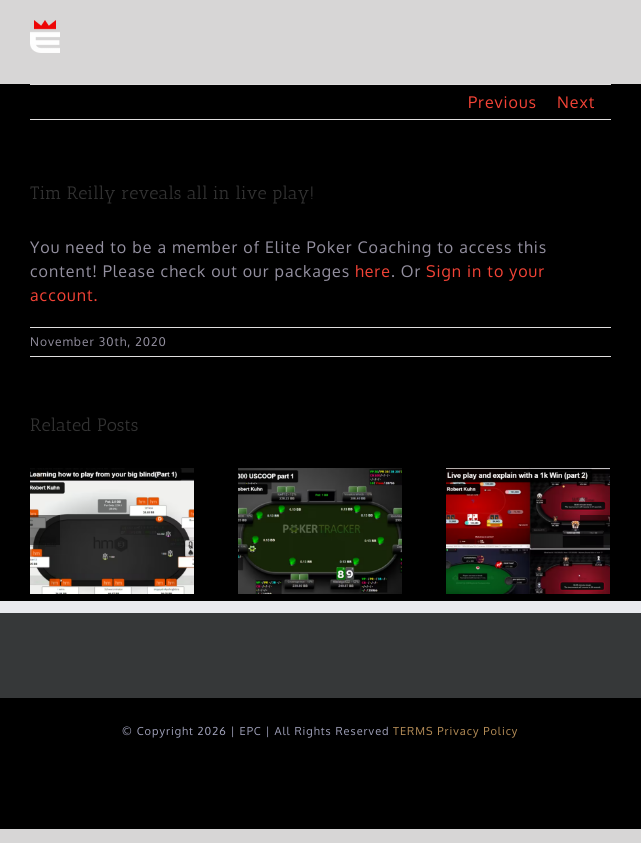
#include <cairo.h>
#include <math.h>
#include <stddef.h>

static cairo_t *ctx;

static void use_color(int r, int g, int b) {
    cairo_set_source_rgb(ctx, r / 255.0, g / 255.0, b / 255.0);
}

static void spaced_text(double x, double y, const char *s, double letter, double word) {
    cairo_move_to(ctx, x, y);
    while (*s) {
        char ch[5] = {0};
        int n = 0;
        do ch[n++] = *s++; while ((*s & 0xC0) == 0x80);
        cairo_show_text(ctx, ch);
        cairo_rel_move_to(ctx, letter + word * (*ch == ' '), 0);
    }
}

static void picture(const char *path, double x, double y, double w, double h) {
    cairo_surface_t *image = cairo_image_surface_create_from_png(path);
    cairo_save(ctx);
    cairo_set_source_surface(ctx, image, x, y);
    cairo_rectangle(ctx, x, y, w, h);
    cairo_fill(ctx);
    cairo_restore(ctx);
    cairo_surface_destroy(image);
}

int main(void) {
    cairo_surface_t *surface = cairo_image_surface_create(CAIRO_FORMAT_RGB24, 641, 843);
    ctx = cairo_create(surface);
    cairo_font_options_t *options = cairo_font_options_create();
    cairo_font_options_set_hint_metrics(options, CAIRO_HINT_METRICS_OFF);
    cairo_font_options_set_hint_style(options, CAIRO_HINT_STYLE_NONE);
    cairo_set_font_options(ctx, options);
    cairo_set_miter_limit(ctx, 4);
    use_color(215, 214, 214);
    cairo_paint(ctx);
    use_color(0, 0, 0);
    cairo_rectangle(ctx, 0, 84, 641, 745);
    cairo_fill(ctx);
    picture("img1.png", 30, 20, 30, 33);
    use_color(224, 222, 222);
    cairo_rectangle(ctx, 30, 84, 581, 1);
    cairo_fill(ctx);
    cairo_rectangle(ctx, 30, 119, 581, 1);
    cairo_fill(ctx);
    cairo_select_font_face(ctx, "Oxygen", CAIRO_FONT_SLANT_NORMAL, CAIRO_FONT_WEIGHT_NORMAL);
    cairo_set_font_size(ctx, 16);
    use_color(244, 67, 54);
    spaced_text(468, 108, "Previous", 1, 0);
    spaced_text(557, 108, "Next", 1, 0);
    cairo_select_font_face(ctx, "Antic Slab", CAIRO_FONT_SLANT_NORMAL, CAIRO_FONT_WEIGHT_NORMAL);
    cairo_set_font_size(ctx, 18);
    use_color(51, 51, 51);
    cairo_move_to(ctx, 30, 199);
    cairo_show_text(ctx, "Tim Reilly reveals all in live play!");
    cairo_select_font_face(ctx, "Oxygen", CAIRO_FONT_SLANT_NORMAL, CAIRO_FONT_WEIGHT_NORMAL);
    cairo_set_font_size(ctx, 16);
    use_color(148, 144, 160);
    spaced_text(30, 253, "You need to be a member of Elite Poker Coaching to access this", 1, 0);
    spaced_text(30, 277, "content! Please check out our packages", 1, 0);
    use_color(244, 67, 54);
    spaced_text(355, 277, "here", 1, 0);
    use_color(148, 144, 160);
    spaced_text(391, 277, ". Or", 1, 0);
    use_color(244, 67, 54);
    spaced_text(426, 277, "Sign in to your", 1, 0);
    spaced_text(30, 301, "account.", 1, 0);
    use_color(224, 222, 222);
    cairo_rectangle(ctx, 30, 327, 581, 1);
    cairo_fill(ctx);
    cairo_rectangle(ctx, 30, 356, 581, 1);
    cairo_fill(ctx);
    cairo_set_font_size(ctx, 12);
    use_color(148, 144, 160);
    spaced_text(30, 346, "November 30th, 2020", 1, 0);
    cairo_select_font_face(ctx, "Antic Slab", CAIRO_FONT_SLANT_NORMAL, CAIRO_FONT_WEIGHT_NORMAL);
    cairo_set_font_size(ctx, 18);
    use_color(51, 51, 51);
    cairo_move_to(ctx, 30, 431);
    cairo_show_text(ctx, "Related Posts");
    picture("img2.png", 30, 468, 164, 126);
    picture("img3.png", 238, 468, 164, 126);
    picture("img4.png", 446, 468, 164, 126);
    cairo_set_source_rgba(ctx, 0, 0, 0, 0.48);
    cairo_rectangle(ctx, 30, 515, 30, 30);
    cairo_fill(ctx);
    cairo_rectangle(ctx, 580, 515, 30, 30);
    cairo_fill(ctx);
    use_color(54, 56, 57);
    cairo_rectangle(ctx, 0, 613, 641, 85);
    cairo_fill(ctx);
    use_color(233, 234, 238);
    cairo_rectangle(ctx, 0, 601, 641, 12);
    cairo_fill(ctx);
    cairo_select_font_face(ctx, "Oxygen", CAIRO_FONT_SLANT_NORMAL, CAIRO_FONT_WEIGHT_NORMAL);
    cairo_set_font_size(ctx, 11);
    use_color(161, 162, 187);
    spaced_text(122, 735, "© Copyright 2026 | EPC | All Rights Reserved", 1, 0);
    use_color(185, 144, 89);
    spaced_text(393, 735, "TERMS Privacy Policy", 1, 0);
    cairo_surface_write_to_png(surface, "result.png");
    cairo_font_options_destroy(options);
    cairo_destroy(ctx);
    cairo_surface_destroy(surface);
    return 0;
}
